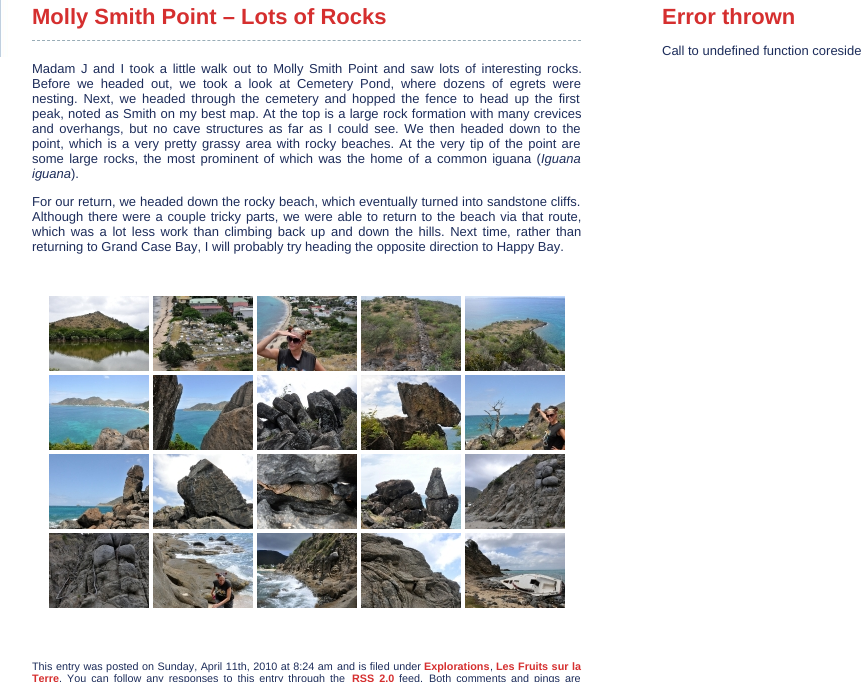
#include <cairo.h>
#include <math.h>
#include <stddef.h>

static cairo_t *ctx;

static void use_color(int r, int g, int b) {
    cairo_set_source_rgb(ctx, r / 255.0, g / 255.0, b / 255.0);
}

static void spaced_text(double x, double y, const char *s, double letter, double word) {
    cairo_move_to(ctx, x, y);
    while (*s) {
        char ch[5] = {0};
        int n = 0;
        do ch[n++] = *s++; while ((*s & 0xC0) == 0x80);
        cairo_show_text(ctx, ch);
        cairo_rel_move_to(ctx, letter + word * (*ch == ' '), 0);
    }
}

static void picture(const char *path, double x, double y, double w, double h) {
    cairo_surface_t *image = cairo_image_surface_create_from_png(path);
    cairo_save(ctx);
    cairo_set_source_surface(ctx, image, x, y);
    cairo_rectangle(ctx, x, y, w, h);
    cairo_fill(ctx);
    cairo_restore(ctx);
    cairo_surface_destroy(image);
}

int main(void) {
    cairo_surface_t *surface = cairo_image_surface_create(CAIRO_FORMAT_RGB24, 863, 682);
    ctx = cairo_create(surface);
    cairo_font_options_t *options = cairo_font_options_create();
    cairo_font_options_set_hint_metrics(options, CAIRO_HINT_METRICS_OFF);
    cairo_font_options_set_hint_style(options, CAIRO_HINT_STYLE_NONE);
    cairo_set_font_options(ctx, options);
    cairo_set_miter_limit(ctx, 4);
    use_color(255, 255, 255);
    cairo_paint(ctx);
    picture("img1.png", 0, 0, 8, 57);
    cairo_new_path(ctx);
    cairo_move_to(ctx, 32, 40.5);
    cairo_line_to(ctx, 581, 40.5);
    use_color(153, 173, 183);
    cairo_set_line_width(ctx, 1);
    cairo_set_dash(ctx, (double[]){3, 2.01}, 2, 0);
    cairo_stroke(ctx);
    cairo_select_font_face(ctx, "Liberation Sans", CAIRO_FONT_SLANT_NORMAL, CAIRO_FONT_WEIGHT_BOLD);
    cairo_set_font_size(ctx, 22);
    use_color(213, 47, 47);
    cairo_move_to(ctx, 32, 24);
    cairo_show_text(ctx, "Molly Smith Point – Lots of Rocks");
    cairo_select_font_face(ctx, "Liberation Sans", CAIRO_FONT_SLANT_NORMAL, CAIRO_FONT_WEIGHT_NORMAL);
    cairo_set_font_size(ctx, 13);
    use_color(28, 44, 90);
    spaced_text(32, 73, "Madam J and I took a little walk out to Molly Smith Point and saw lots of interesting rocks.", 0, 2);
    spaced_text(32, 88, "Before we headed out, we took a look at Cemetery Pond, where dozens of egrets were", 0, 3.25);
    spaced_text(32, 103, "nesting. Next, we headed through the cemetery and hopped the fence to head up the first", 0, 2.25);
    spaced_text(32, 118, "peak, noted as Smith on my best map. At the top is a large rock formation with many crevices", 0, 0.7);
    spaced_text(32, 133, "and overhangs, but no cave structures as far as I could see. We then headed down to the", 0, 2);
    spaced_text(32, 148, "point, which is a very pretty grassy area with rocky beaches. At the very tip of the point are", 0, 1.6);
    spaced_text(32, 163, "some large rocks, the most prominent of which was the home of a common iguana (", 0, 1.75);
    cairo_select_font_face(ctx, "Liberation Sans", CAIRO_FONT_SLANT_ITALIC, CAIRO_FONT_WEIGHT_NORMAL);
    cairo_move_to(ctx, 541, 163);
    cairo_show_text(ctx, "Iguana");
    cairo_move_to(ctx, 32, 178);
    cairo_show_text(ctx, "iguana");
    cairo_select_font_face(ctx, "Liberation Sans", CAIRO_FONT_SLANT_NORMAL, CAIRO_FONT_WEIGHT_NORMAL);
    cairo_move_to(ctx, 71, 178);
    cairo_show_text(ctx, ").");
    spaced_text(32, 206, "For our return, we headed down the rocky beach, which eventually turned into sandstone cliffs.", 0, 0.25);
    spaced_text(32, 221, "Although there were a couple tricky parts, we were able to return to the beach via that route,", 0, 1.2);
    spaced_text(32, 236, "which was a lot less work than climbing back up and down the hills. Next time, rather than", 0, 2);
    cairo_move_to(ctx, 32, 251);
    cairo_show_text(ctx, "returning to Grand Case Bay, I will probably try heading the opposite direction to Happy Bay.");
    picture("img2.png", 49, 296, 100, 75);
    picture("img3.png", 153, 296, 100, 75);
    picture("img4.png", 257, 296, 100, 75);
    picture("img5.png", 361, 296, 100, 75);
    picture("img6.png", 465, 296, 100, 75);
    picture("img7.png", 49, 375, 100, 75);
    picture("img8.png", 153, 375, 100, 75);
    picture("img9.png", 257, 375, 100, 75);
    picture("img10.png", 361, 375, 100, 75);
    picture("img11.png", 465, 375, 100, 75);
    picture("img12.png", 49, 454, 100, 75);
    picture("img13.png", 153, 454, 100, 75);
    picture("img14.png", 257, 454, 100, 75);
    picture("img15.png", 361, 454, 100, 75);
    picture("img16.png", 465, 454, 100, 75);
    picture("img17.png", 49, 533, 100, 75);
    picture("img18.png", 153, 533, 100, 75);
    picture("img19.png", 257, 533, 100, 75);
    picture("img20.png", 361, 533, 100, 75);
    picture("img21.png", 465, 533, 100, 75);
    cairo_set_font_size(ctx, 10.8);
    spaced_text(32, 670, "This entry was posted", 0, 0.5);
    spaced_text(142, 670, "on Sunday, April 11th, 2010 at 8:24 am", 0, 0.5);
    spaced_text(337, 670, "and is filed under", 0, 0.5);
    cairo_select_font_face(ctx, "Liberation Sans", CAIRO_FONT_SLANT_NORMAL, CAIRO_FONT_WEIGHT_BOLD);
    use_color(213, 47, 47);
    cairo_move_to(ctx, 424, 670);
    cairo_show_text(ctx, "Explorations");
    cairo_select_font_face(ctx, "Liberation Sans", CAIRO_FONT_SLANT_NORMAL, CAIRO_FONT_WEIGHT_NORMAL);
    use_color(28, 44, 90);
    cairo_move_to(ctx, 490, 670);
    cairo_show_text(ctx, ",");
    cairo_select_font_face(ctx, "Liberation Sans", CAIRO_FONT_SLANT_NORMAL, CAIRO_FONT_WEIGHT_BOLD);
    use_color(213, 47, 47);
    spaced_text(496, 670, "Les Fruits sur la", 0, 0.5);
    cairo_move_to(ctx, 32, 682);
    cairo_show_text(ctx, "Terre");
    cairo_select_font_face(ctx, "Liberation Sans", CAIRO_FONT_SLANT_NORMAL, CAIRO_FONT_WEIGHT_NORMAL);
    use_color(28, 44, 90);
    cairo_move_to(ctx, 59, 682);
    cairo_show_text(ctx, ".");
    spaced_text(67, 682, "You can follow any responses to this entry through the", 0, 2);
    cairo_select_font_face(ctx, "Liberation Sans", CAIRO_FONT_SLANT_NORMAL, CAIRO_FONT_WEIGHT_BOLD);
    use_color(213, 47, 47);
    spaced_text(352, 682, "RSS 2.0", 0, 2);
    cairo_select_font_face(ctx, "Liberation Sans", CAIRO_FONT_SLANT_NORMAL, CAIRO_FONT_WEIGHT_NORMAL);
    use_color(28, 44, 90);
    cairo_move_to(ctx, 399, 682);
    cairo_show_text(ctx, "feed.");
    spaced_text(429, 682, "Both comments and pings are", 0, 2);
    cairo_select_font_face(ctx, "Liberation Sans", CAIRO_FONT_SLANT_NORMAL, CAIRO_FONT_WEIGHT_BOLD);
    cairo_set_font_size(ctx, 22);
    use_color(213, 47, 47);
    cairo_move_to(ctx, 662, 24);
    cairo_show_text(ctx, "Error thrown");
    cairo_select_font_face(ctx, "Liberation Sans", CAIRO_FONT_SLANT_NORMAL, CAIRO_FONT_WEIGHT_NORMAL);
    cairo_set_font_size(ctx, 13);
    use_color(28, 44, 90);
    cairo_move_to(ctx, 662, 55);
    cairo_show_text(ctx, "Call to undefined function coreside");
    cairo_surface_write_to_png(surface, "result.png");
    cairo_font_options_destroy(options);
    cairo_destroy(ctx);
    cairo_surface_destroy(surface);
    return 0;
}
